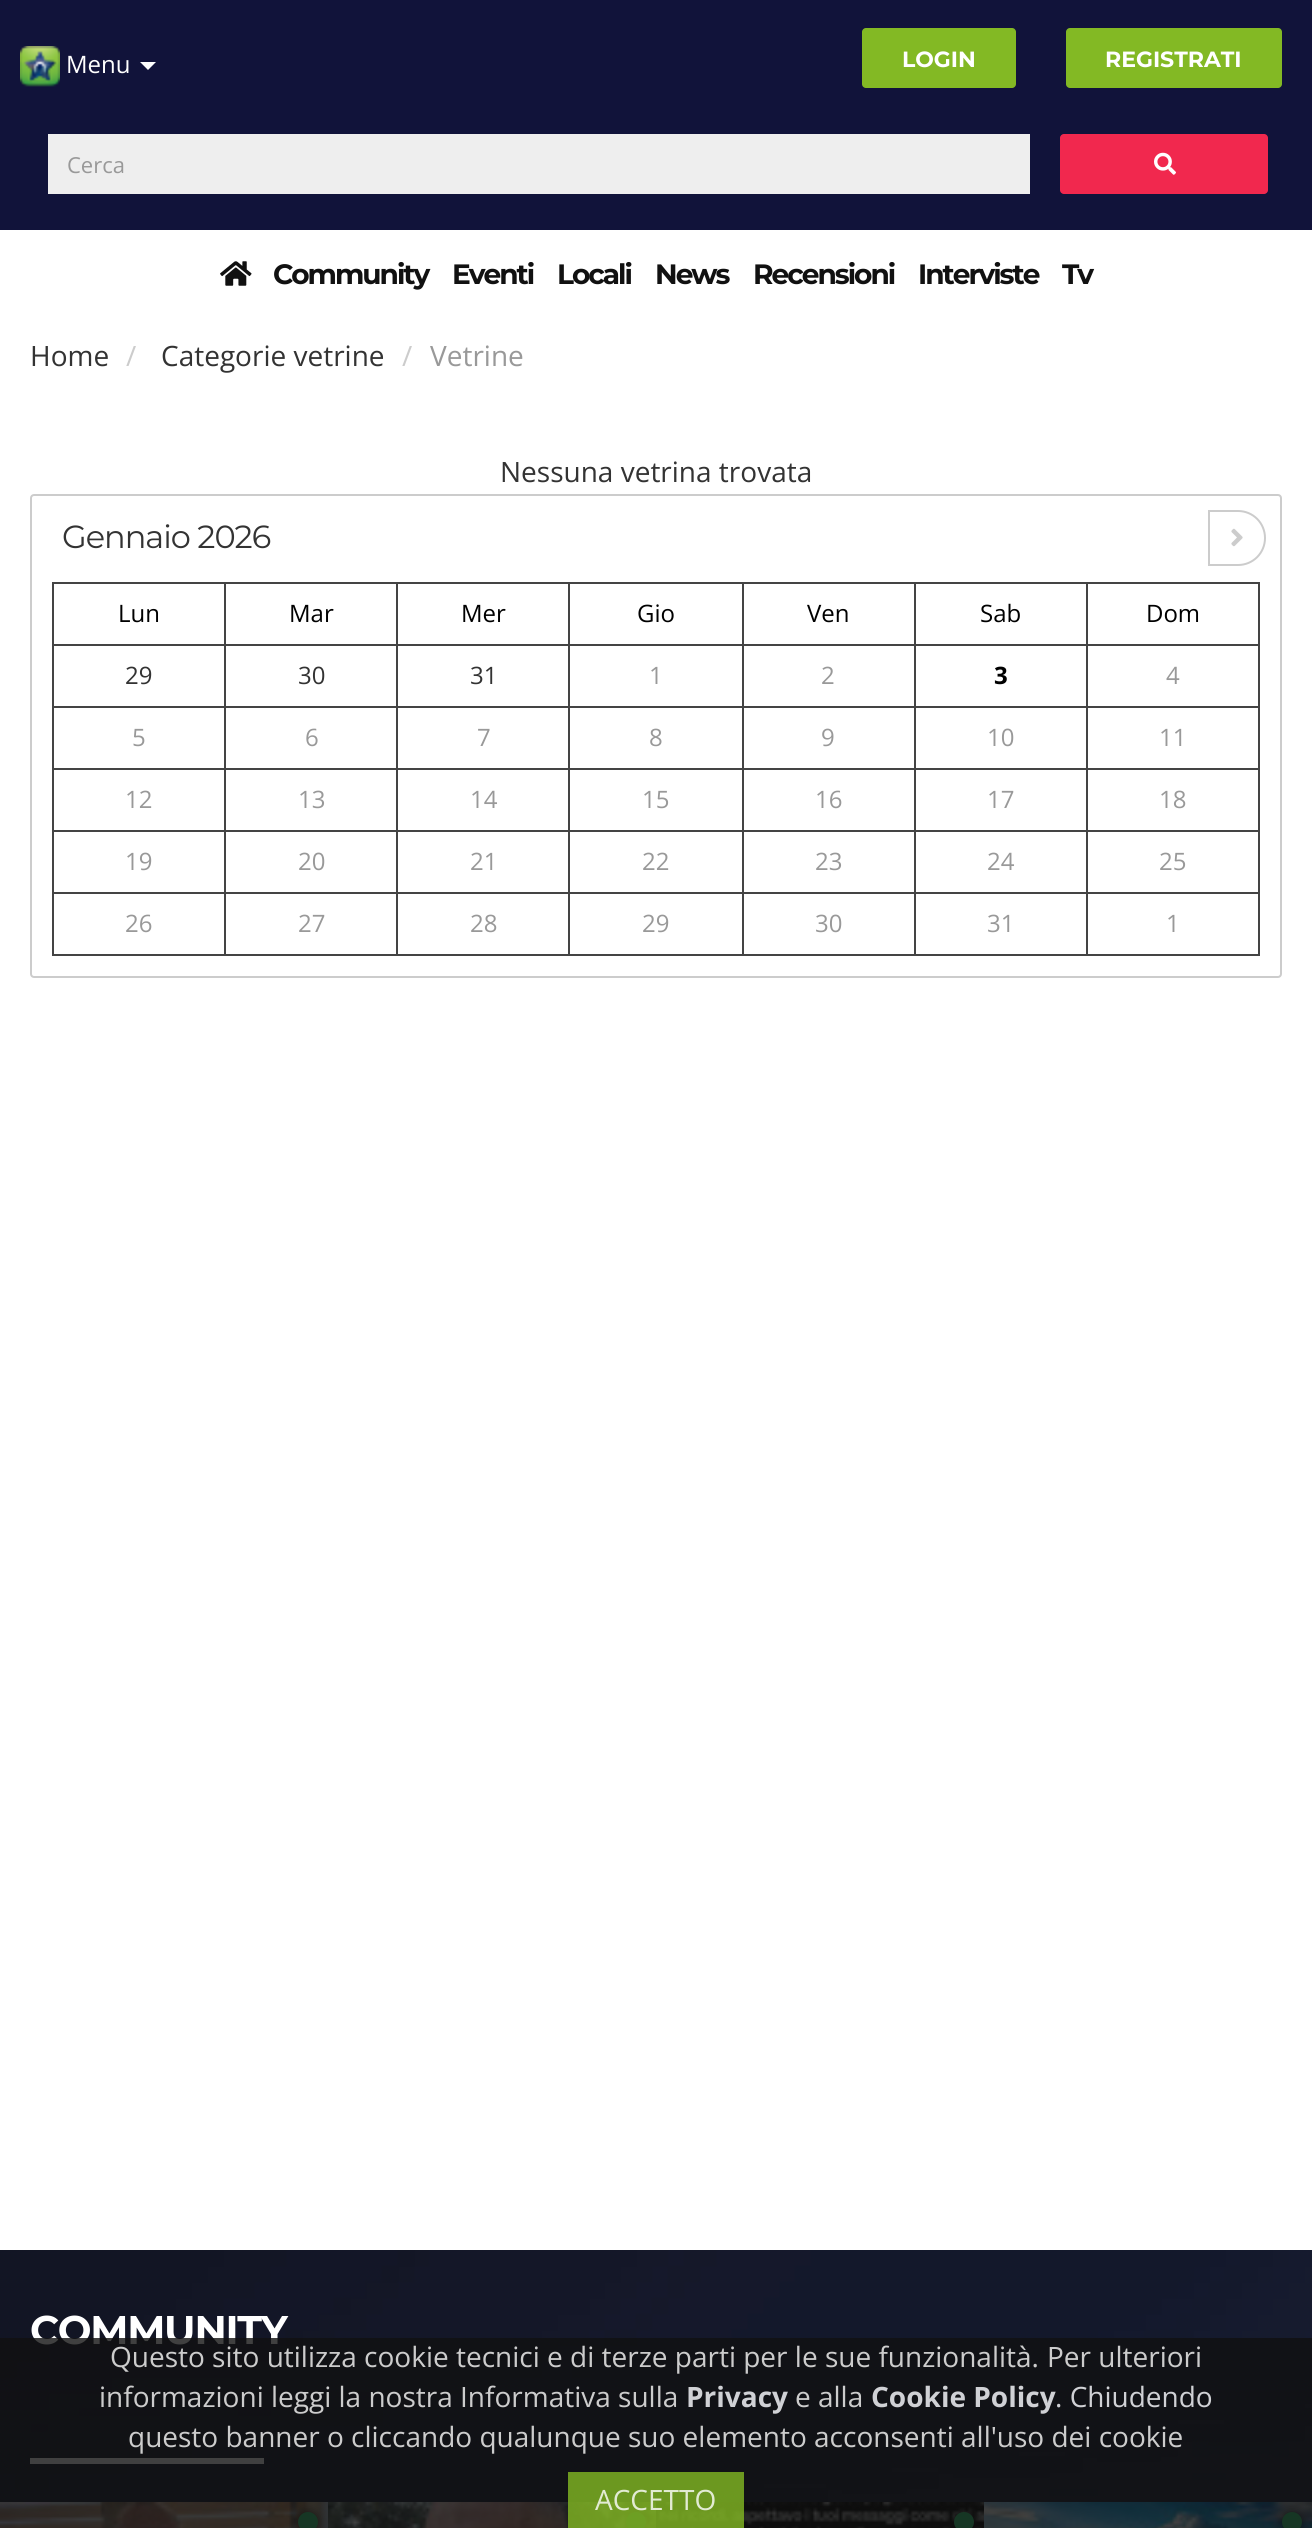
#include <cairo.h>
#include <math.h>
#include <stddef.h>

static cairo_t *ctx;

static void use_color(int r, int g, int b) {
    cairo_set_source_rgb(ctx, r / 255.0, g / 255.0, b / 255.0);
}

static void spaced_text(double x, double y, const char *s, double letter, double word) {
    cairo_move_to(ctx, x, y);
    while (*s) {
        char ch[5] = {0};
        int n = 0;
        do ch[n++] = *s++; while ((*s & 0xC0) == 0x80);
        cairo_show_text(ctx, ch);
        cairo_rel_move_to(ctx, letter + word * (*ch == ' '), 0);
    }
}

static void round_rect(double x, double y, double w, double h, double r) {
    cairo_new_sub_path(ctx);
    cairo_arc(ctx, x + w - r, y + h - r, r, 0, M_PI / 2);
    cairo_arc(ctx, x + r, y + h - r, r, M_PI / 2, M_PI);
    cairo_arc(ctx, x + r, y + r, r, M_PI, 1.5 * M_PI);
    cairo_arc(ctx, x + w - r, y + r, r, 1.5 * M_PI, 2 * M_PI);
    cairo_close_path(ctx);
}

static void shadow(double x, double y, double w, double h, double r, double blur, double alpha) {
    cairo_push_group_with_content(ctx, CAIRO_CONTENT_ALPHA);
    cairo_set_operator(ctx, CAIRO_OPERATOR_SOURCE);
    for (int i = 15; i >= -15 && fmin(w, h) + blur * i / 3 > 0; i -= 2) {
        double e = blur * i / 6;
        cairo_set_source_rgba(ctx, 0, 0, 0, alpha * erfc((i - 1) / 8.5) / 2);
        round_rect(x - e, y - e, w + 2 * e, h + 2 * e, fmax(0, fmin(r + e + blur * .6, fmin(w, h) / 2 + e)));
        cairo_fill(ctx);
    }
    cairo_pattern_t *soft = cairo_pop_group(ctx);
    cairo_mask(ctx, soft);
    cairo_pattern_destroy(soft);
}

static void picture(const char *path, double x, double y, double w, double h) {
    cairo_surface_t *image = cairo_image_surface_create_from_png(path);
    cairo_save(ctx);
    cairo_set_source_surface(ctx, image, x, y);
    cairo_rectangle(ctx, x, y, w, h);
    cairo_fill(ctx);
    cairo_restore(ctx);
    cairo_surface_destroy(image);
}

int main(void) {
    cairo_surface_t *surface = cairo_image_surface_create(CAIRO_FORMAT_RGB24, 1312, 2528);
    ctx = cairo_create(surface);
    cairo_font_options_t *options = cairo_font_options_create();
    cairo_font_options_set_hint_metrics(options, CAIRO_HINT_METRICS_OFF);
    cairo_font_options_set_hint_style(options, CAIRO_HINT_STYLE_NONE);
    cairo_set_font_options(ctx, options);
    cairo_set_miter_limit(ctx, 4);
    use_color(255, 255, 255);
    cairo_paint(ctx);
    use_color(17, 19, 58);
    cairo_rectangle(ctx, 0, 0, 1312, 230);
    cairo_fill(ctx);
    picture("img1.png", 20, 46, 40, 41);
    cairo_select_font_face(ctx, "Open Sans", CAIRO_FONT_SLANT_NORMAL, CAIRO_FONT_WEIGHT_NORMAL);
    cairo_set_font_size(ctx, 24);
    use_color(255, 255, 255);
    cairo_move_to(ctx, 66, 73);
    cairo_show_text(ctx, "Menu");
    cairo_new_path(ctx);
    cairo_move_to(ctx, 140, 62);
    cairo_line_to(ctx, 156, 62);
    cairo_line_to(ctx, 148, 70);
    cairo_close_path(ctx);
    cairo_fill(ctx);
    use_color(131, 185, 36);
    round_rect(862, 28, 154, 60, 4);
    cairo_fill(ctx);
    cairo_select_font_face(ctx, "Montserrat", CAIRO_FONT_SLANT_NORMAL, CAIRO_FONT_WEIGHT_BOLD);
    cairo_set_font_size(ctx, 22);
    use_color(255, 255, 255);
    cairo_move_to(ctx, 902, 67);
    cairo_show_text(ctx, "LOGIN");
    use_color(131, 185, 36);
    round_rect(1066, 28, 216, 60, 4);
    cairo_fill(ctx);
    use_color(255, 255, 255);
    cairo_move_to(ctx, 1105, 67);
    cairo_show_text(ctx, "REGISTRATI");
    use_color(238, 238, 238);
    cairo_rectangle(ctx, 48, 134, 982, 60);
    cairo_fill(ctx);
    cairo_select_font_face(ctx, "Open Sans", CAIRO_FONT_SLANT_NORMAL, CAIRO_FONT_WEIGHT_NORMAL);
    use_color(153, 153, 153);
    cairo_move_to(ctx, 67, 173);
    cairo_show_text(ctx, "Cerca");
    use_color(241, 40, 78);
    round_rect(1060, 134, 208, 60, 4);
    cairo_fill(ctx);
    picture("img2.png", 1154, 152, 22, 23);
    picture("img3.png", 220, 261, 32, 25);
    cairo_select_font_face(ctx, "Montserrat", CAIRO_FONT_SLANT_NORMAL, CAIRO_FONT_WEIGHT_BOLD);
    cairo_set_font_size(ctx, 28);
    use_color(17, 17, 17);
    spaced_text(273, 284, "Community", -2, 0);
    spaced_text(452, 284, "Eventi", -2, 0);
    spaced_text(557, 284, "Locali", -2, 0);
    spaced_text(655, 284, "News", -2, 0);
    spaced_text(753, 284, "Recensioni", -2, 0);
    spaced_text(918, 284, "Interviste", -2, 0);
    spaced_text(1062, 284, "Tv", -2, 0);
    cairo_select_font_face(ctx, "Open Sans", CAIRO_FONT_SLANT_NORMAL, CAIRO_FONT_WEIGHT_NORMAL);
    use_color(51, 51, 51);
    cairo_move_to(ctx, 30, 366);
    cairo_show_text(ctx, "Home");
    use_color(204, 204, 204);
    cairo_move_to(ctx, 126, 366);
    cairo_show_text(ctx, "/");
    use_color(51, 51, 51);
    cairo_move_to(ctx, 161, 366);
    cairo_show_text(ctx, "Categorie vetrine");
    use_color(204, 204, 204);
    cairo_move_to(ctx, 402, 366);
    cairo_show_text(ctx, "/");
    use_color(153, 153, 153);
    cairo_move_to(ctx, 430, 366);
    cairo_show_text(ctx, "Vetrine");
    use_color(51, 51, 51);
    cairo_move_to(ctx, 500, 482);
    cairo_show_text(ctx, "Nessuna vetrina trovata");
    round_rect(31, 495, 1250, 482, 3);
    use_color(204, 204, 204);
    cairo_stroke(ctx);
    cairo_select_font_face(ctx, "Montserrat", CAIRO_FONT_SLANT_NORMAL, CAIRO_FONT_WEIGHT_NORMAL);
    cairo_set_font_size(ctx, 32);
    use_color(51, 51, 51);
    spaced_text(62, 548, "Gennaio 2026", -1, 0);
    cairo_new_path(ctx);
    cairo_move_to(ctx, 1209, 511);
    cairo_line_to(ctx, 1238, 511);
    cairo_curve_to(ctx, 1253, 511, 1265, 523, 1265, 538);
    cairo_curve_to(ctx, 1265, 553, 1253, 565, 1238, 565);
    cairo_line_to(ctx, 1209, 565);
    cairo_close_path(ctx);
    use_color(204, 204, 204);
    cairo_stroke(ctx);
    picture("img4.png", 1231, 528, 12, 19);
    use_color(68, 68, 68);
    cairo_rectangle(ctx, 52, 582, 1208, 2);
    cairo_fill(ctx);
    cairo_rectangle(ctx, 52, 582, 2, 374);
    cairo_fill(ctx);
    cairo_rectangle(ctx, 52, 644, 1208, 2);
    cairo_fill(ctx);
    cairo_select_font_face(ctx, "Open Sans", CAIRO_FONT_SLANT_NORMAL, CAIRO_FONT_WEIGHT_NORMAL);
    cairo_set_font_size(ctx, 24);
    use_color(0, 0, 0);
    cairo_move_to(ctx, 118, 622);
    cairo_show_text(ctx, "Lun");
    cairo_move_to(ctx, 289, 622);
    cairo_show_text(ctx, "Mar");
    cairo_move_to(ctx, 461, 622);
    cairo_show_text(ctx, "Mer");
    cairo_move_to(ctx, 637, 622);
    cairo_show_text(ctx, "Gio");
    cairo_move_to(ctx, 807, 622);
    cairo_show_text(ctx, "Ven");
    cairo_move_to(ctx, 980, 622);
    cairo_show_text(ctx, "Sab");
    cairo_move_to(ctx, 1146, 622);
    cairo_show_text(ctx, "Dom");
    use_color(68, 68, 68);
    cairo_rectangle(ctx, 52, 706, 1208, 2);
    cairo_fill(ctx);
    use_color(51, 51, 51);
    cairo_move_to(ctx, 125, 684);
    cairo_show_text(ctx, "29");
    cairo_move_to(ctx, 298, 684);
    cairo_show_text(ctx, "30");
    cairo_move_to(ctx, 470, 684);
    cairo_show_text(ctx, "31");
    use_color(153, 153, 153);
    cairo_move_to(ctx, 649, 684);
    cairo_show_text(ctx, "1");
    cairo_move_to(ctx, 821, 684);
    cairo_show_text(ctx, "2");
    cairo_select_font_face(ctx, "Open Sans", CAIRO_FONT_SLANT_NORMAL, CAIRO_FONT_WEIGHT_BOLD);
    use_color(0, 0, 0);
    cairo_move_to(ctx, 994, 684);
    cairo_show_text(ctx, "3");
    cairo_select_font_face(ctx, "Open Sans", CAIRO_FONT_SLANT_NORMAL, CAIRO_FONT_WEIGHT_NORMAL);
    use_color(153, 153, 153);
    cairo_move_to(ctx, 1166, 684);
    cairo_show_text(ctx, "4");
    use_color(68, 68, 68);
    cairo_rectangle(ctx, 52, 768, 1208, 2);
    cairo_fill(ctx);
    use_color(153, 153, 153);
    cairo_move_to(ctx, 132, 746);
    cairo_show_text(ctx, "5");
    cairo_move_to(ctx, 305, 746);
    cairo_show_text(ctx, "6");
    cairo_move_to(ctx, 477, 746);
    cairo_show_text(ctx, "7");
    cairo_move_to(ctx, 649, 746);
    cairo_show_text(ctx, "8");
    cairo_move_to(ctx, 821, 746);
    cairo_show_text(ctx, "9");
    cairo_move_to(ctx, 987, 746);
    cairo_show_text(ctx, "10");
    cairo_move_to(ctx, 1159, 746);
    cairo_show_text(ctx, "11");
    use_color(68, 68, 68);
    cairo_rectangle(ctx, 52, 830, 1208, 2);
    cairo_fill(ctx);
    use_color(153, 153, 153);
    cairo_move_to(ctx, 125, 808);
    cairo_show_text(ctx, "12");
    cairo_move_to(ctx, 298, 808);
    cairo_show_text(ctx, "13");
    cairo_move_to(ctx, 470, 808);
    cairo_show_text(ctx, "14");
    cairo_move_to(ctx, 642, 808);
    cairo_show_text(ctx, "15");
    cairo_move_to(ctx, 815, 808);
    cairo_show_text(ctx, "16");
    cairo_move_to(ctx, 987, 808);
    cairo_show_text(ctx, "17");
    cairo_move_to(ctx, 1159, 808);
    cairo_show_text(ctx, "18");
    use_color(68, 68, 68);
    cairo_rectangle(ctx, 52, 892, 1208, 2);
    cairo_fill(ctx);
    use_color(153, 153, 153);
    cairo_move_to(ctx, 125, 870);
    cairo_show_text(ctx, "19");
    cairo_move_to(ctx, 298, 870);
    cairo_show_text(ctx, "20");
    cairo_move_to(ctx, 470, 870);
    cairo_show_text(ctx, "21");
    cairo_move_to(ctx, 642, 870);
    cairo_show_text(ctx, "22");
    cairo_move_to(ctx, 815, 870);
    cairo_show_text(ctx, "23");
    cairo_move_to(ctx, 987, 870);
    cairo_show_text(ctx, "24");
    cairo_move_to(ctx, 1159, 870);
    cairo_show_text(ctx, "25");
    cairo_move_to(ctx, 125, 932);
    cairo_show_text(ctx, "26");
    use_color(68, 68, 68);
    cairo_rectangle(ctx, 52, 954, 1208, 2);
    cairo_fill(ctx);
    cairo_rectangle(ctx, 224, 582, 2, 374);
    cairo_fill(ctx);
    use_color(153, 153, 153);
    cairo_move_to(ctx, 298, 932);
    cairo_show_text(ctx, "27");
    use_color(68, 68, 68);
    cairo_rectangle(ctx, 396, 582, 2, 374);
    cairo_fill(ctx);
    use_color(153, 153, 153);
    cairo_move_to(ctx, 470, 932);
    cairo_show_text(ctx, "28");
    use_color(68, 68, 68);
    cairo_rectangle(ctx, 568, 582, 2, 374);
    cairo_fill(ctx);
    use_color(153, 153, 153);
    cairo_move_to(ctx, 642, 932);
    cairo_show_text(ctx, "29");
    use_color(68, 68, 68);
    cairo_rectangle(ctx, 742, 582, 2, 374);
    cairo_fill(ctx);
    use_color(153, 153, 153);
    cairo_move_to(ctx, 815, 932);
    cairo_show_text(ctx, "30");
    use_color(68, 68, 68);
    cairo_rectangle(ctx, 914, 582, 2, 374);
    cairo_fill(ctx);
    use_color(153, 153, 153);
    cairo_move_to(ctx, 987, 932);
    cairo_show_text(ctx, "31");
    use_color(68, 68, 68);
    cairo_rectangle(ctx, 1258, 582, 2, 374);
    cairo_fill(ctx);
    cairo_rectangle(ctx, 1086, 582, 2, 374);
    cairo_fill(ctx);
    use_color(153, 153, 153);
    cairo_move_to(ctx, 1166, 932);
    cairo_show_text(ctx, "1");
    picture("img5.png", 0, 2250, 1312, 252);
    cairo_select_font_face(ctx, "Montserrat", CAIRO_FONT_SLANT_NORMAL, CAIRO_FONT_WEIGHT_BOLD);
    cairo_set_font_size(ctx, 40);
    use_color(255, 255, 255);
    spaced_text(30, 2344, "COMMUNITY", -1.25, 0);
    cairo_rectangle(ctx, 30, 2458, 234, 6);
    cairo_fill(ctx);
    picture("img6.png", 0, 2502, 328, 26);
    use_color(0, 0, 0);
    shadow(298, 2512, 20, 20, 10, 5, 0.75);
    use_color(46, 204, 113);
    cairo_arc(ctx, 308, 2522, 10, 0, 2 * M_PI);
    cairo_fill(ctx);
    picture("img7.png", 328, 2502, 328, 26);
    use_color(0, 0, 0);
    shadow(626, 2512, 20, 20, 10, 5, 0.75);
    use_color(46, 204, 113);
    cairo_arc(ctx, 636, 2522, 10, 0, 2 * M_PI);
    cairo_fill(ctx);
    picture("img8.png", 656, 2502, 328, 26);
    use_color(0, 0, 0);
    shadow(954, 2512, 20, 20, 10, 5, 0.75);
    use_color(46, 204, 113);
    cairo_arc(ctx, 964, 2522, 10, 0, 2 * M_PI);
    cairo_fill(ctx);
    picture("img9.png", 984, 2502, 328, 26);
    use_color(0, 0, 0);
    shadow(1282, 2512, 20, 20, 10, 5, 0.75);
    use_color(46, 204, 113);
    cairo_arc(ctx, 1292, 2522, 10, 0, 2 * M_PI);
    cairo_fill(ctx);
    cairo_set_source_rgba(ctx, 0.067, 0.067, 0.067, 0.8);
    cairo_rectangle(ctx, 0, 2338, 1312, 190);
    cairo_fill(ctx);
    cairo_select_font_face(ctx, "Open Sans", CAIRO_FONT_SLANT_NORMAL, CAIRO_FONT_WEIGHT_NORMAL);
    cairo_set_font_size(ctx, 28);
    use_color(204, 204, 204);
    cairo_move_to(ctx, 110, 2367);
    cairo_show_text(ctx, "Questo sito utilizza cookie tecnici e di terze parti per le sue funzionalità.");
    cairo_move_to(ctx, 1047, 2367);
    cairo_show_text(ctx, "Per ulteriori");
    cairo_move_to(ctx, 99, 2407);
    cairo_show_text(ctx, "informazioni leggi la nostra Informativa sulla");
    cairo_select_font_face(ctx, "Open Sans", CAIRO_FONT_SLANT_NORMAL, CAIRO_FONT_WEIGHT_BOLD);
    use_color(208, 209, 213);
    cairo_move_to(ctx, 686, 2407);
    cairo_show_text(ctx, "Privacy");
    cairo_select_font_face(ctx, "Open Sans", CAIRO_FONT_SLANT_NORMAL, CAIRO_FONT_WEIGHT_NORMAL);
    use_color(204, 204, 204);
    cairo_move_to(ctx, 795, 2407);
    cairo_show_text(ctx, "e alla");
    cairo_select_font_face(ctx, "Open Sans", CAIRO_FONT_SLANT_NORMAL, CAIRO_FONT_WEIGHT_BOLD);
    use_color(208, 209, 213);
    cairo_move_to(ctx, 871, 2407);
    cairo_show_text(ctx, "Cookie Policy");
    cairo_select_font_face(ctx, "Open Sans", CAIRO_FONT_SLANT_NORMAL, CAIRO_FONT_WEIGHT_NORMAL);
    cairo_move_to(ctx, 1055, 2407);
    cairo_show_text(ctx, ". Chiudendo");
    use_color(204, 204, 204);
    cairo_move_to(ctx, 128, 2447);
    cairo_show_text(ctx, "questo banner o cliccando qualunque suo elemento acconsenti all'uso dei cookie");
    cairo_set_source_rgba(ctx, 0.514, 0.725, 0.141, 0.8);
    cairo_rectangle(ctx, 568, 2472, 176, 56);
    cairo_fill(ctx);
    use_color(226, 235, 211);
    cairo_move_to(ctx, 595, 2510);
    cairo_show_text(ctx, "ACCETTO");
    cairo_surface_write_to_png(surface, "result.png");
    cairo_font_options_destroy(options);
    cairo_destroy(ctx);
    cairo_surface_destroy(surface);
    return 0;
}
